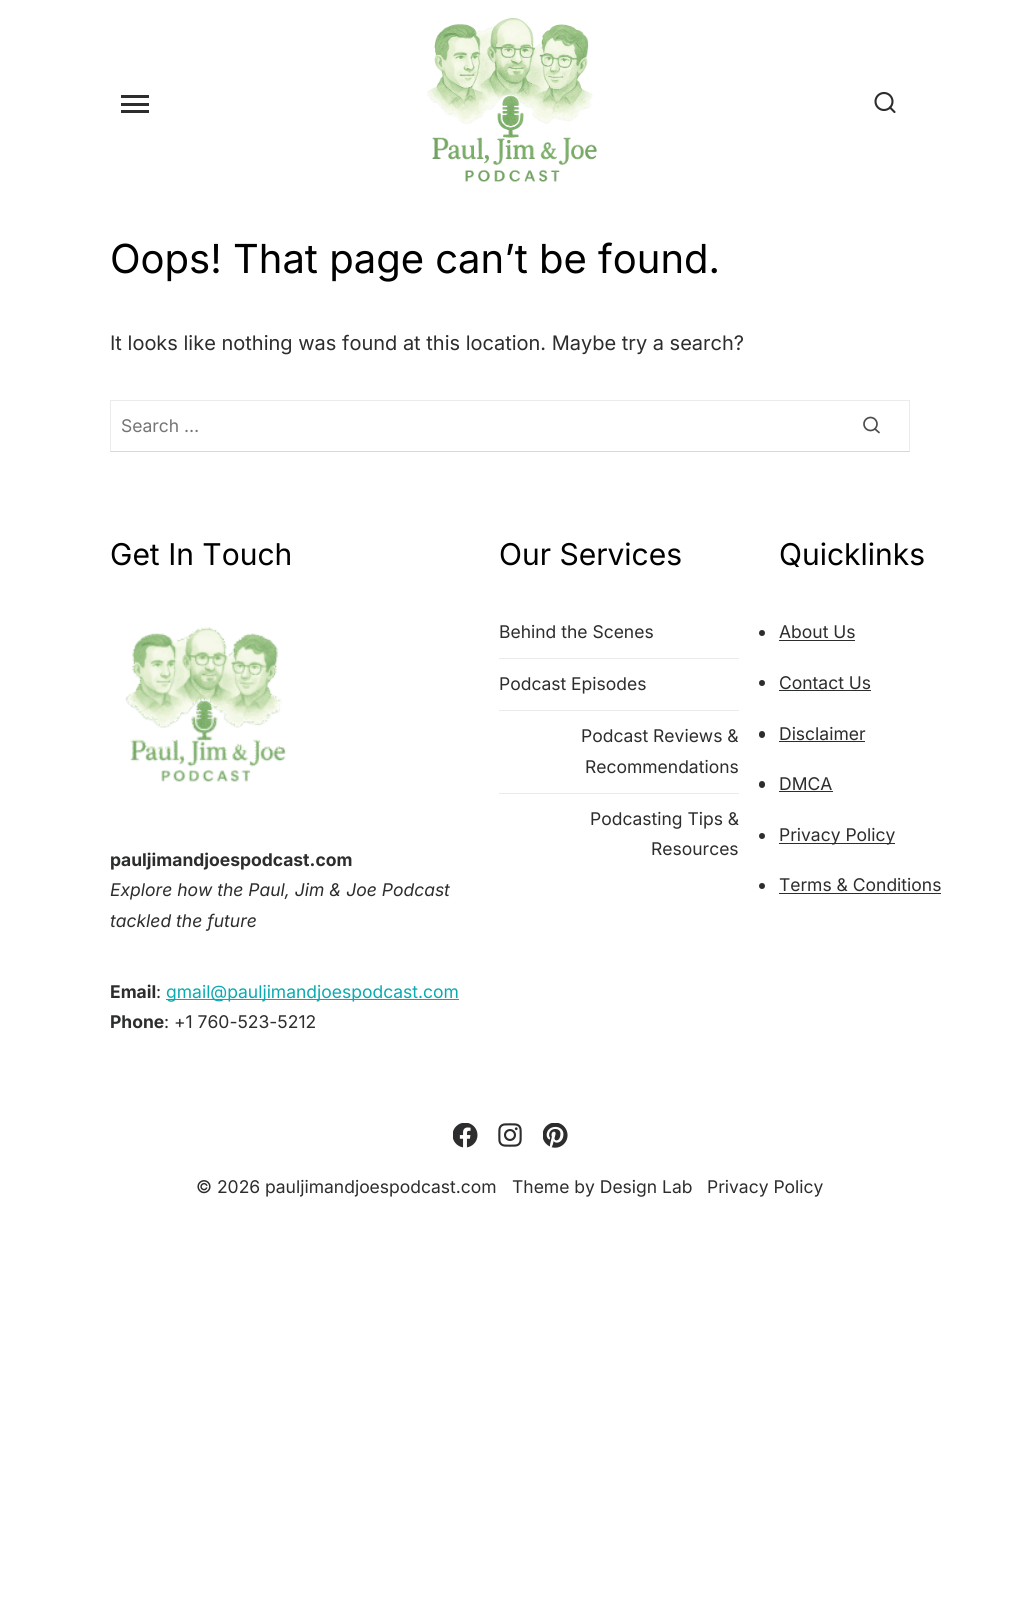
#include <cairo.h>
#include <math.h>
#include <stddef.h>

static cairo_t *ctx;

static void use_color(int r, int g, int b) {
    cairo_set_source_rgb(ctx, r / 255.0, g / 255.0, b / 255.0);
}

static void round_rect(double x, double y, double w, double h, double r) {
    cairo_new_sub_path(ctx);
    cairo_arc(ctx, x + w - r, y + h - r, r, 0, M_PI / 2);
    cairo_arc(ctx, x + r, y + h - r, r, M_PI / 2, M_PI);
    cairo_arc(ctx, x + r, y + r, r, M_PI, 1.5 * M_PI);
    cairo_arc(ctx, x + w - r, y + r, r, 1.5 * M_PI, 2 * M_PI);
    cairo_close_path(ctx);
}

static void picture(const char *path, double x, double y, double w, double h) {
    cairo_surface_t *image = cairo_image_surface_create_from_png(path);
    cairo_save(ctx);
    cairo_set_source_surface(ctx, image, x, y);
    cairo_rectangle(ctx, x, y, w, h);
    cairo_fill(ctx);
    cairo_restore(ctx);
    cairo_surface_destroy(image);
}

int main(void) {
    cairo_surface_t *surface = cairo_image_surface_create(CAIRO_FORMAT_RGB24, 1020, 1620);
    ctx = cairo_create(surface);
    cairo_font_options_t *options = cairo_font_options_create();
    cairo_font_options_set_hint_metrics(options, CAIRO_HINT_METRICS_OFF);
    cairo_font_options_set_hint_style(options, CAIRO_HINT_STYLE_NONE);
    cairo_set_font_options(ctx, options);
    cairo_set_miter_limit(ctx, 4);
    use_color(255, 255, 255);
    cairo_paint(ctx);
    use_color(44, 45, 46);
    cairo_rectangle(ctx, 121, 103, 28, 3);
    cairo_fill(ctx);
    cairo_rectangle(ctx, 121, 95, 28, 3);
    cairo_fill(ctx);
    cairo_rectangle(ctx, 121, 110, 28, 3);
    cairo_fill(ctx);
    picture("img1.png", 426, 18, 171, 164);
    cairo_arc(ctx, 884, 101.5, 8.5, 0, 2 * M_PI);
    cairo_set_line_width(ctx, 2.1);
    cairo_stroke(ctx);
    cairo_new_path(ctx);
    cairo_move_to(ctx, 894.5, 112);
    cairo_line_to(ctx, 890, 107.5);
    cairo_set_line_cap(ctx, CAIRO_LINE_CAP_ROUND);
    cairo_set_line_join(ctx, CAIRO_LINE_JOIN_ROUND);
    cairo_stroke(ctx);
    cairo_select_font_face(ctx, "Inter", CAIRO_FONT_SLANT_NORMAL, CAIRO_FONT_WEIGHT_NORMAL);
    cairo_set_font_size(ctx, 40);
    use_color(0, 0, 0);
    cairo_move_to(ctx, 110, 273);
    cairo_show_text(ctx, "Oops! That page can’t be found.");
    cairo_set_font_size(ctx, 20);
    use_color(44, 45, 46);
    cairo_move_to(ctx, 110, 350);
    cairo_show_text(ctx, "It looks like nothing was found at this location. Maybe try a search?");
    use_color(235, 235, 235);
    cairo_new_path(ctx);
    cairo_move_to(ctx, 110, 400);
    cairo_line_to(ctx, 910, 400);
    cairo_line_to(ctx, 909, 401);
    cairo_line_to(ctx, 111, 401);
    cairo_close_path(ctx);
    cairo_fill(ctx);
    cairo_set_source_rgba(ctx, 0, 0, 0, 0.08);
    cairo_new_path(ctx);
    cairo_move_to(ctx, 910, 400);
    cairo_line_to(ctx, 910, 452);
    cairo_line_to(ctx, 909, 451);
    cairo_line_to(ctx, 909, 401);
    cairo_close_path(ctx);
    cairo_fill(ctx);
    cairo_set_source_rgba(ctx, 0, 0, 0, 0.16);
    cairo_new_path(ctx);
    cairo_move_to(ctx, 910, 452);
    cairo_line_to(ctx, 110, 452);
    cairo_line_to(ctx, 111, 451);
    cairo_line_to(ctx, 909, 451);
    cairo_close_path(ctx);
    cairo_fill(ctx);
    cairo_set_source_rgba(ctx, 0, 0, 0, 0.08);
    cairo_new_path(ctx);
    cairo_move_to(ctx, 110, 452);
    cairo_line_to(ctx, 110, 400);
    cairo_line_to(ctx, 111, 401);
    cairo_line_to(ctx, 111, 451);
    cairo_close_path(ctx);
    cairo_fill(ctx);
    cairo_set_font_size(ctx, 17.5);
    use_color(117, 117, 117);
    cairo_move_to(ctx, 121, 432);
    cairo_show_text(ctx, "Search …");
    cairo_new_path(ctx);
    cairo_arc(ctx, 870.5, 424, 6.5, 0, 2 * M_PI);
    use_color(75, 76, 77);
    cairo_set_line_width(ctx, 1.7);
    cairo_set_line_cap(ctx, CAIRO_LINE_CAP_BUTT);
    cairo_set_line_join(ctx, CAIRO_LINE_JOIN_MITER);
    cairo_stroke(ctx);
    cairo_new_path(ctx);
    cairo_move_to(ctx, 879, 432.5);
    cairo_line_to(ctx, 875, 429);
    cairo_set_line_cap(ctx, CAIRO_LINE_CAP_ROUND);
    cairo_set_line_join(ctx, CAIRO_LINE_JOIN_ROUND);
    cairo_stroke(ctx);
    cairo_set_font_size(ctx, 30);
    use_color(0, 0, 0);
    cairo_move_to(ctx, 110, 565);
    cairo_show_text(ctx, "Get In Touch");
    picture("img2.png", 125, 627, 161, 155);
    cairo_select_font_face(ctx, "Inter", CAIRO_FONT_SLANT_NORMAL, CAIRO_FONT_WEIGHT_BOLD);
    cairo_set_font_size(ctx, 17.5);
    use_color(44, 45, 46);
    cairo_move_to(ctx, 110, 866);
    cairo_show_text(ctx, "pauljimandjoespodcast.com");
    cairo_select_font_face(ctx, "Inter", CAIRO_FONT_SLANT_ITALIC, CAIRO_FONT_WEIGHT_NORMAL);
    cairo_move_to(ctx, 110, 896);
    cairo_show_text(ctx, "Explore how the Paul, Jim & Joe Podcast");
    cairo_move_to(ctx, 110, 927);
    cairo_show_text(ctx, "tackled the future");
    cairo_select_font_face(ctx, "Inter", CAIRO_FONT_SLANT_NORMAL, CAIRO_FONT_WEIGHT_BOLD);
    cairo_move_to(ctx, 110, 998);
    cairo_show_text(ctx, "Email");
    cairo_select_font_face(ctx, "Inter", CAIRO_FONT_SLANT_NORMAL, CAIRO_FONT_WEIGHT_NORMAL);
    cairo_move_to(ctx, 156, 998);
    cairo_show_text(ctx, ":");
    use_color(11, 170, 176);
    cairo_rectangle(ctx, 166, 999, 293, 1);
    cairo_fill(ctx);
    cairo_move_to(ctx, 166, 998);
    cairo_show_text(ctx, "gmail@pauljimandjoespodcast.com");
    cairo_select_font_face(ctx, "Inter", CAIRO_FONT_SLANT_NORMAL, CAIRO_FONT_WEIGHT_BOLD);
    use_color(44, 45, 46);
    cairo_move_to(ctx, 110, 1028);
    cairo_show_text(ctx, "Phone");
    cairo_select_font_face(ctx, "Inter", CAIRO_FONT_SLANT_NORMAL, CAIRO_FONT_WEIGHT_NORMAL);
    cairo_move_to(ctx, 164, 1028);
    cairo_show_text(ctx, ": +1 760-523-5212");
    cairo_set_font_size(ctx, 30);
    use_color(0, 0, 0);
    cairo_move_to(ctx, 499, 565);
    cairo_show_text(ctx, "Our Services");
    use_color(235, 235, 235);
    cairo_rectangle(ctx, 499, 658, 240, 1);
    cairo_fill(ctx);
    cairo_set_font_size(ctx, 17.5);
    use_color(44, 45, 46);
    cairo_move_to(ctx, 499, 638);
    cairo_show_text(ctx, "Behind the Scenes");
    use_color(235, 235, 235);
    cairo_rectangle(ctx, 499, 710, 240, 1);
    cairo_fill(ctx);
    use_color(44, 45, 46);
    cairo_move_to(ctx, 499, 690);
    cairo_show_text(ctx, "Podcast Episodes");
    use_color(235, 235, 235);
    cairo_rectangle(ctx, 499, 793, 240, 1);
    cairo_fill(ctx);
    use_color(44, 45, 46);
    cairo_move_to(ctx, 581, 742);
    cairo_show_text(ctx, "Podcast Reviews &");
    cairo_move_to(ctx, 585, 773);
    cairo_show_text(ctx, "Recommendations");
    cairo_move_to(ctx, 590, 825);
    cairo_show_text(ctx, "Podcasting Tips &");
    cairo_move_to(ctx, 651, 855);
    cairo_show_text(ctx, "Resources");
    cairo_set_font_size(ctx, 30);
    use_color(0, 0, 0);
    cairo_move_to(ctx, 779, 565);
    cairo_show_text(ctx, "Quicklinks");
    use_color(44, 45, 46);
    cairo_new_path(ctx);
    cairo_arc(ctx, 762, 633, 3, 0, 2 * M_PI);
    cairo_fill(ctx);
    cairo_set_font_size(ctx, 17.5);
    cairo_move_to(ctx, 779, 638);
    cairo_show_text(ctx, "About Us");
    cairo_rectangle(ctx, 779, 640, 76, 1);
    cairo_fill(ctx);
    cairo_arc(ctx, 762, 683, 3, 0, 2 * M_PI);
    cairo_fill(ctx);
    cairo_move_to(ctx, 779, 689);
    cairo_show_text(ctx, "Contact Us");
    cairo_rectangle(ctx, 779, 690, 92, 1);
    cairo_fill(ctx);
    round_rect(759, 731, 6, 7, 3);
    cairo_fill(ctx);
    cairo_move_to(ctx, 779, 740);
    cairo_show_text(ctx, "Disclaimer");
    cairo_rectangle(ctx, 779, 741, 86, 1);
    cairo_fill(ctx);
    round_rect(759, 781, 6, 7, 3);
    cairo_fill(ctx);
    cairo_move_to(ctx, 779, 790);
    cairo_show_text(ctx, "DMCA");
    cairo_rectangle(ctx, 779, 791, 54, 1);
    cairo_fill(ctx);
    cairo_arc(ctx, 762, 836, 3, 0, 2 * M_PI);
    cairo_fill(ctx);
    cairo_rectangle(ctx, 779, 843, 116, 1);
    cairo_fill(ctx);
    cairo_move_to(ctx, 779, 841);
    cairo_show_text(ctx, "Privacy Policy");
    cairo_new_path(ctx);
    cairo_arc(ctx, 762, 886, 3, 0, 2 * M_PI);
    cairo_fill(ctx);
    cairo_move_to(ctx, 779, 891);
    cairo_show_text(ctx, "Terms & Conditions");
    cairo_rectangle(ctx, 779, 893, 162, 1);
    cairo_fill(ctx);
    picture("img3.png", 453, 1123, 25, 25);
    picture("img4.png", 498, 1123, 24, 24);
    picture("img5.png", 543, 1123, 25, 25);
    cairo_move_to(ctx, 196, 1193);
    cairo_show_text(ctx, "© 2026 pauljimandjoespodcast.com");
    cairo_move_to(ctx, 512, 1193);
    cairo_show_text(ctx, "Theme by Design Lab");
    cairo_move_to(ctx, 707, 1193);
    cairo_show_text(ctx, "Privacy Policy");
    cairo_surface_write_to_png(surface, "result.png");
    cairo_font_options_destroy(options);
    cairo_destroy(ctx);
    cairo_surface_destroy(surface);
    return 0;
}
